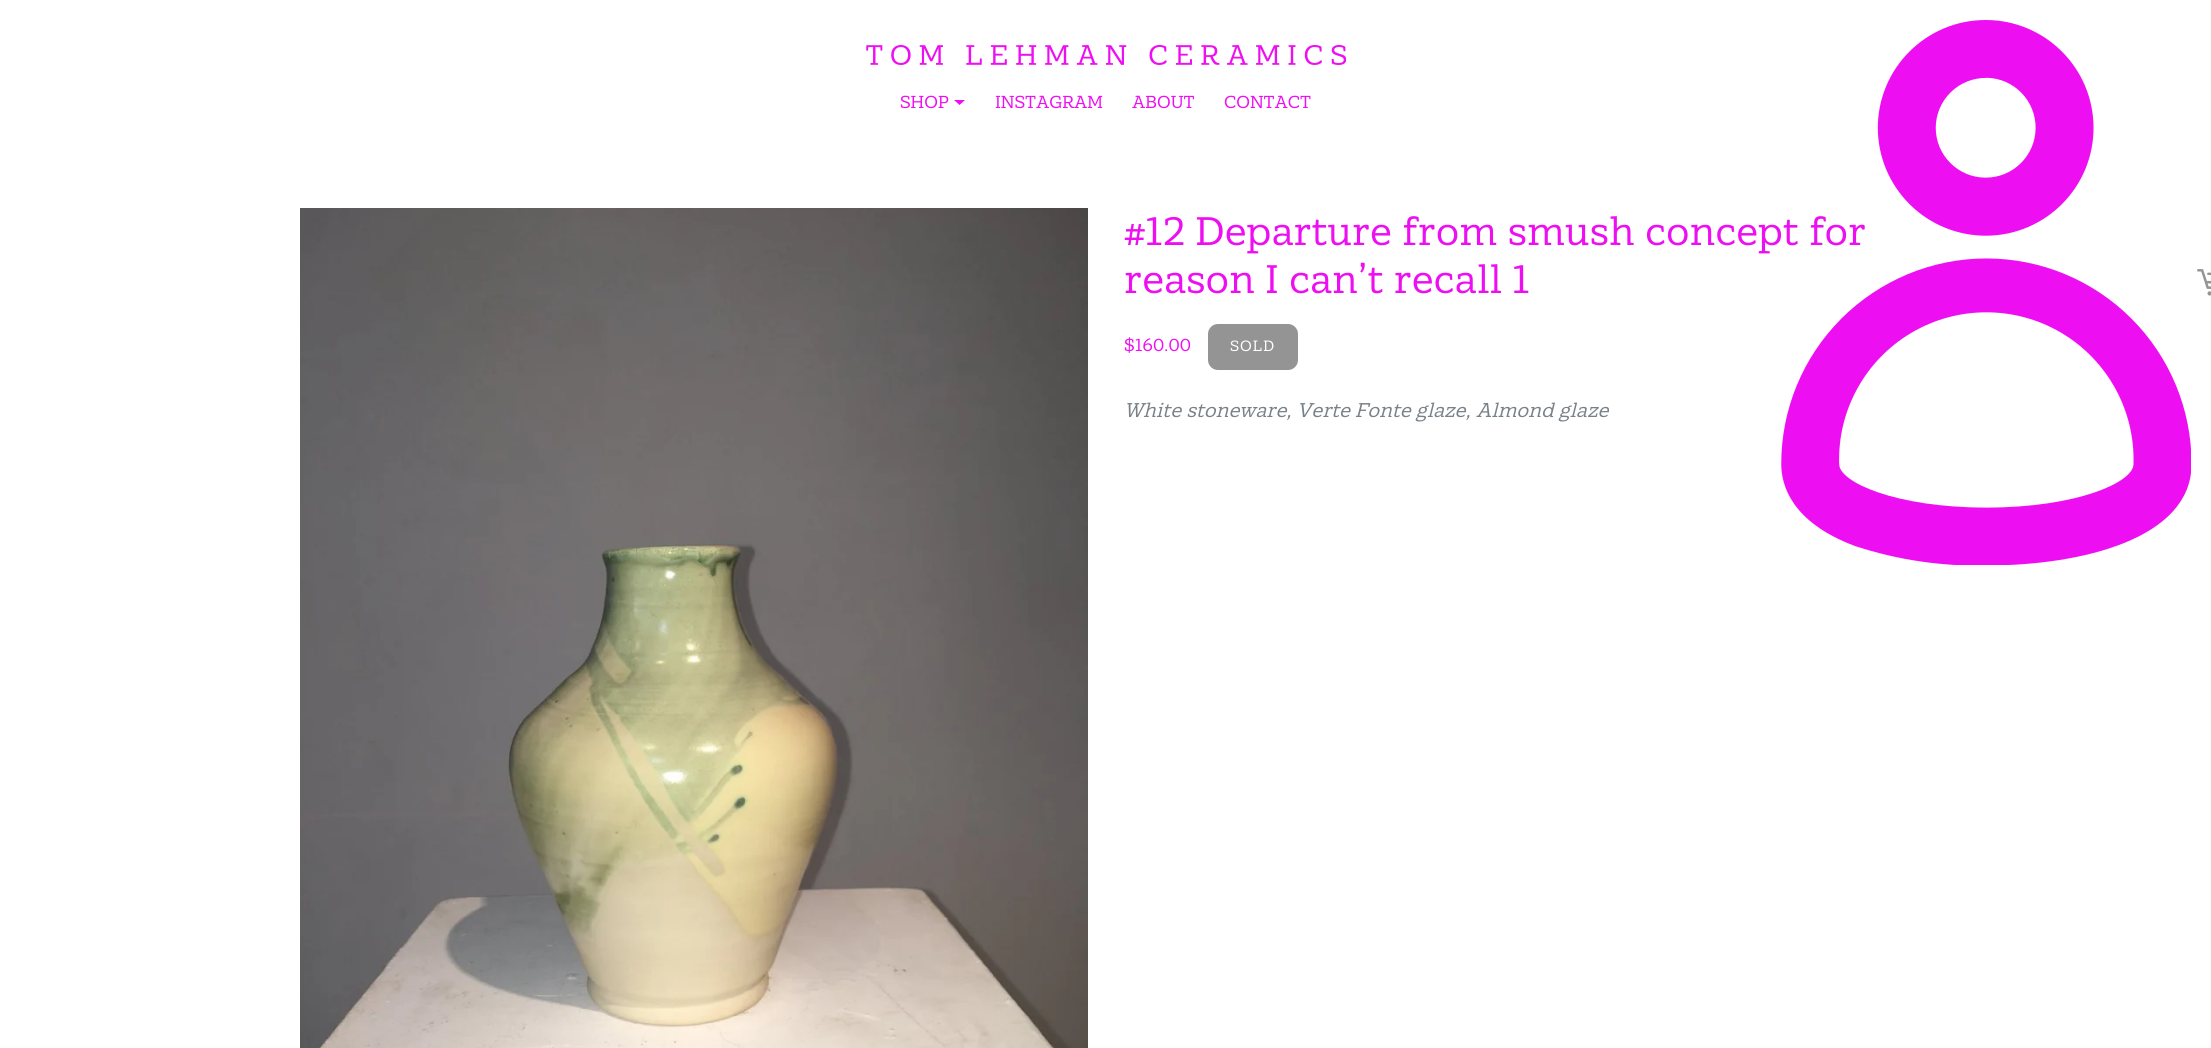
#include <cairo.h>
#include <math.h>
#include <stddef.h>

static cairo_t *ctx;

static void use_color(int r, int g, int b) {
    cairo_set_source_rgb(ctx, r / 255.0, g / 255.0, b / 255.0);
}

static void spaced_text(double x, double y, const char *s, double letter, double word) {
    cairo_move_to(ctx, x, y);
    while (*s) {
        char ch[5] = {0};
        int n = 0;
        do ch[n++] = *s++; while ((*s & 0xC0) == 0x80);
        cairo_show_text(ctx, ch);
        cairo_rel_move_to(ctx, letter + word * (*ch == ' '), 0);
    }
}

static void round_rect(double x, double y, double w, double h, double r) {
    cairo_new_sub_path(ctx);
    cairo_arc(ctx, x + w - r, y + h - r, r, 0, M_PI / 2);
    cairo_arc(ctx, x + r, y + h - r, r, M_PI / 2, M_PI);
    cairo_arc(ctx, x + r, y + r, r, M_PI, 1.5 * M_PI);
    cairo_arc(ctx, x + w - r, y + r, r, 1.5 * M_PI, 2 * M_PI);
    cairo_close_path(ctx);
}

static void picture(const char *path, double x, double y, double w, double h) {
    cairo_surface_t *image = cairo_image_surface_create_from_png(path);
    cairo_save(ctx);
    cairo_set_source_surface(ctx, image, x, y);
    cairo_rectangle(ctx, x, y, w, h);
    cairo_fill(ctx);
    cairo_restore(ctx);
    cairo_surface_destroy(image);
}

int main(void) {
    cairo_surface_t *surface = cairo_image_surface_create(CAIRO_FORMAT_RGB24, 2211, 1048);
    ctx = cairo_create(surface);
    cairo_font_options_t *options = cairo_font_options_create();
    cairo_font_options_set_hint_metrics(options, CAIRO_HINT_METRICS_OFF);
    cairo_font_options_set_hint_style(options, CAIRO_HINT_STYLE_NONE);
    cairo_set_font_options(ctx, options);
    cairo_set_miter_limit(ctx, 4);
    use_color(255, 255, 255);
    cairo_paint(ctx);
    picture("img1.png", 866, 45, 480, 20);
    cairo_select_font_face(ctx, "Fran", CAIRO_FONT_SLANT_NORMAL, CAIRO_FONT_WEIGHT_NORMAL);
    cairo_set_font_size(ctx, 17.5);
    use_color(238, 14, 242);
    cairo_move_to(ctx, 900, 108);
    cairo_show_text(ctx, "SHOP");
    cairo_set_fill_rule(ctx, CAIRO_FILL_RULE_EVEN_ODD);
    cairo_new_path(ctx);
    cairo_move_to(ctx, 959.5, 105);
    cairo_line_to(ctx, 954, 100);
    cairo_line_to(ctx, 965, 100);
    cairo_close_path(ctx);
    cairo_fill(ctx);
    cairo_move_to(ctx, 995, 108);
    cairo_show_text(ctx, "INSTAGRAM");
    cairo_move_to(ctx, 1132, 108);
    cairo_show_text(ctx, "ABOUT");
    cairo_move_to(ctx, 1224, 108);
    cairo_show_text(ctx, "CONTACT");
    cairo_set_font_size(ctx, 40);
    cairo_move_to(ctx, 1124, 245);
    cairo_show_text(ctx, "#12 Departure from smush concept for");
    picture("img2.png", 1781, 20, 410, 545);
    picture("img3.png", 2197, 269, 14, 27);
    picture("img4.png", 300, 208, 788, 840);
    cairo_move_to(ctx, 1124, 293);
    cairo_show_text(ctx, "reason I can’t recall 1");
    cairo_set_font_size(ctx, 17.5);
    cairo_move_to(ctx, 1124, 351);
    cairo_show_text(ctx, "$160.00");
    use_color(148, 148, 148);
    round_rect(1208, 324, 90, 46, 10);
    cairo_fill(ctx);
    cairo_set_font_size(ctx, 15);
    use_color(255, 255, 255);
    spaced_text(1230, 351, "SOLD", 1, 0);
    cairo_select_font_face(ctx, "Fran", CAIRO_FONT_SLANT_ITALIC, CAIRO_FONT_WEIGHT_NORMAL);
    cairo_set_font_size(ctx, 20);
    use_color(120, 129, 136);
    cairo_move_to(ctx, 1124, 417);
    cairo_show_text(ctx, "White stoneware, Verte Fonte glaze, Almond glaze");
    cairo_surface_write_to_png(surface, "result.png");
    cairo_font_options_destroy(options);
    cairo_destroy(ctx);
    cairo_surface_destroy(surface);
    return 0;
}
